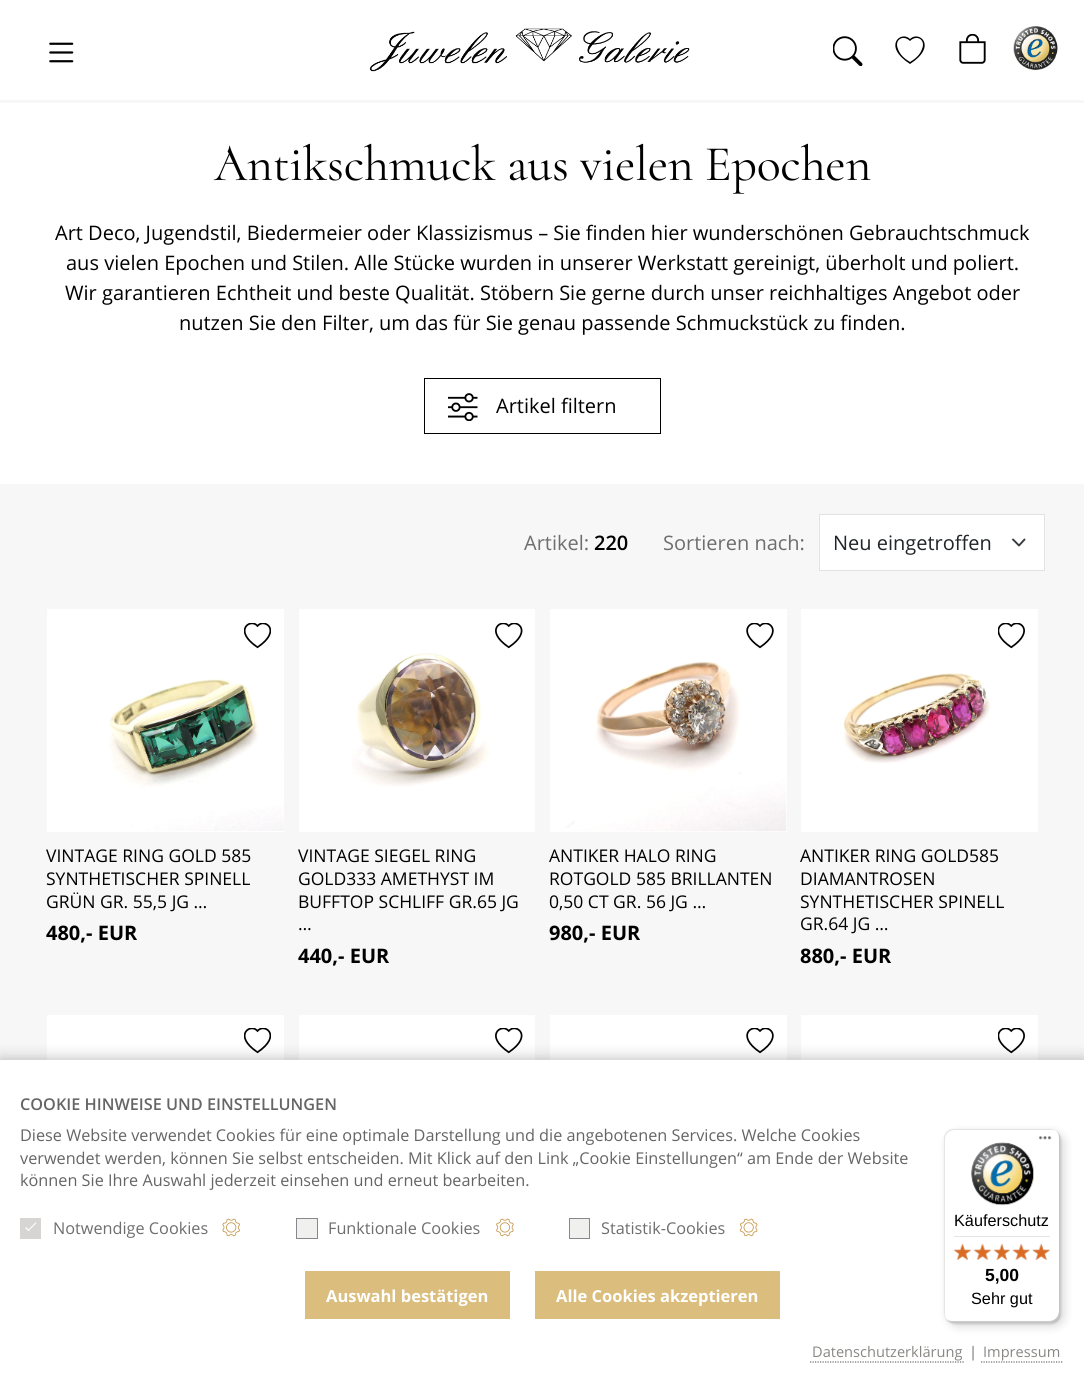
#include <cairo.h>
#include <math.h>
#include <stddef.h>

static cairo_t *ctx;

static void use_color(int r, int g, int b) {
    cairo_set_source_rgb(ctx, r / 255.0, g / 255.0, b / 255.0);
}

static void spaced_text(double x, double y, const char *s, double letter, double word) {
    cairo_move_to(ctx, x, y);
    while (*s) {
        char ch[5] = {0};
        int n = 0;
        do ch[n++] = *s++; while ((*s & 0xC0) == 0x80);
        cairo_show_text(ctx, ch);
        cairo_rel_move_to(ctx, letter + word * (*ch == ' '), 0);
    }
}

static void round_rect(double x, double y, double w, double h, double r) {
    cairo_new_sub_path(ctx);
    cairo_arc(ctx, x + w - r, y + h - r, r, 0, M_PI / 2);
    cairo_arc(ctx, x + r, y + h - r, r, M_PI / 2, M_PI);
    cairo_arc(ctx, x + r, y + r, r, M_PI, 1.5 * M_PI);
    cairo_arc(ctx, x + w - r, y + r, r, 1.5 * M_PI, 2 * M_PI);
    cairo_close_path(ctx);
}

static void shadow(double x, double y, double w, double h, double r, double blur, double alpha) {
    cairo_push_group_with_content(ctx, CAIRO_CONTENT_ALPHA);
    cairo_set_operator(ctx, CAIRO_OPERATOR_SOURCE);
    for (int i = 15; i >= -15 && fmin(w, h) + blur * i / 3 > 0; i -= 2) {
        double e = blur * i / 6;
        cairo_set_source_rgba(ctx, 0, 0, 0, alpha * erfc((i - 1) / 8.5) / 2);
        round_rect(x - e, y - e, w + 2 * e, h + 2 * e, fmax(0, fmin(r + e + blur * .6, fmin(w, h) / 2 + e)));
        cairo_fill(ctx);
    }
    cairo_pattern_t *soft = cairo_pop_group(ctx);
    cairo_mask(ctx, soft);
    cairo_pattern_destroy(soft);
}

static void picture(const char *path, double x, double y, double w, double h) {
    cairo_surface_t *image = cairo_image_surface_create_from_png(path);
    cairo_save(ctx);
    cairo_set_source_surface(ctx, image, x, y);
    cairo_rectangle(ctx, x, y, w, h);
    cairo_fill(ctx);
    cairo_restore(ctx);
    cairo_surface_destroy(image);
}

int main(void) {
    cairo_surface_t *surface = cairo_image_surface_create(CAIRO_FORMAT_RGB24, 1084, 1390);
    ctx = cairo_create(surface);
    cairo_font_options_t *options = cairo_font_options_create();
    cairo_font_options_set_hint_metrics(options, CAIRO_HINT_METRICS_OFF);
    cairo_font_options_set_hint_style(options, CAIRO_HINT_STYLE_NONE);
    cairo_set_font_options(ctx, options);
    cairo_set_miter_limit(ctx, 4);
    use_color(255, 255, 255);
    cairo_paint(ctx);
    picture("img1.png", 49, 42, 25, 21);
    picture("img2.png", 369, 28, 321, 44);
    picture("img3.png", 833, 36, 30, 30);
    use_color(0, 0, 0);
    cairo_new_path(ctx);
    cairo_move_to(ctx, 910, 41);
    cairo_curve_to(ctx, 903, 34, 894, 40, 898, 49);
    cairo_curve_to(ctx, 900, 55, 905, 59, 910, 62);
    cairo_curve_to(ctx, 915, 59, 920, 55, 922, 49);
    cairo_curve_to(ctx, 926, 40, 917, 34, 910, 41);
    cairo_close_path(ctx);
    cairo_move_to(ctx, 910, 64);
    cairo_curve_to(ctx, 882, 46, 901, 30, 910, 39);
    cairo_curve_to(ctx, 919, 30, 938, 46, 910, 64);
    cairo_close_path(ctx);
    cairo_fill(ctx);
    picture("img4.png", 959, 34, 27, 30);
    picture("img5.png", 1013, 26, 45, 44);
    use_color(247, 247, 247);
    cairo_rectangle(ctx, 0, 100, 1084, 3);
    cairo_fill(ctx);
    cairo_select_font_face(ctx, "Cormorant Garamond", CAIRO_FONT_SLANT_NORMAL, CAIRO_FONT_WEIGHT_NORMAL);
    cairo_set_font_size(ctx, 50);
    use_color(0, 0, 0);
    spaced_text(214, 180, "Antikschmuck aus vielen Epochen", -0.25, 0);
    cairo_select_font_face(ctx, "Open Sans", CAIRO_FONT_SLANT_NORMAL, CAIRO_FONT_WEIGHT_NORMAL);
    cairo_set_font_size(ctx, 20);
    cairo_move_to(ctx, 55, 240);
    cairo_show_text(ctx, "Art Deco, Jugendstil, Biedermeier oder Klassizismus – Sie finden hier wunderschönen Gebrauchtschmuck");
    cairo_move_to(ctx, 66, 270);
    cairo_show_text(ctx, "aus vielen Epochen und Stilen. Alle Stücke wurden in unserer Werkstatt gereinigt, überholt und poliert.");
    cairo_move_to(ctx, 65, 300);
    cairo_show_text(ctx, "Wir garantieren Echtheit und beste Qualität. Stöbern Sie gerne durch unser reichhaltiges Angebot oder");
    cairo_move_to(ctx, 179, 330);
    cairo_show_text(ctx, "nutzen Sie den Filter, um das für Sie genau passende Schmuckstück zu finden.");
    cairo_rectangle(ctx, 424.5, 378.5, 236, 55);
    cairo_set_line_width(ctx, 1);
    cairo_stroke(ctx);
    picture("img6.png", 448, 393, 30, 28);
    cairo_move_to(ctx, 496, 413);
    cairo_show_text(ctx, "Artikel filtern");
    use_color(247, 247, 247);
    cairo_rectangle(ctx, 0, 484, 1084, 576);
    cairo_fill(ctx);
    use_color(110, 110, 110);
    cairo_move_to(ctx, 524, 550);
    cairo_show_text(ctx, "Artikel:");
    cairo_select_font_face(ctx, "Open Sans SemiBold", CAIRO_FONT_SLANT_NORMAL, CAIRO_FONT_WEIGHT_NORMAL);
    use_color(0, 0, 0);
    cairo_move_to(ctx, 594, 550);
    cairo_show_text(ctx, "220");
    cairo_select_font_face(ctx, "Open Sans", CAIRO_FONT_SLANT_NORMAL, CAIRO_FONT_WEIGHT_NORMAL);
    use_color(110, 110, 110);
    cairo_move_to(ctx, 663, 550);
    cairo_show_text(ctx, "Sortieren nach:");
    use_color(255, 255, 255);
    cairo_rectangle(ctx, 820, 515, 224, 55);
    cairo_fill(ctx);
    cairo_new_path(ctx);
    cairo_move_to(ctx, 1013, 539.5);
    cairo_line_to(ctx, 1019, 545.5);
    cairo_line_to(ctx, 1024.5, 539.5);
    use_color(52, 58, 64);
    cairo_set_line_width(ctx, 1.9);
    cairo_set_line_cap(ctx, CAIRO_LINE_CAP_ROUND);
    cairo_set_line_join(ctx, CAIRO_LINE_JOIN_ROUND);
    cairo_stroke(ctx);
    cairo_rectangle(ctx, 819.5, 514.5, 225, 56);
    use_color(226, 226, 226);
    cairo_set_line_width(ctx, 1);
    cairo_set_line_cap(ctx, CAIRO_LINE_CAP_BUTT);
    cairo_set_line_join(ctx, CAIRO_LINE_JOIN_MITER);
    cairo_stroke(ctx);
    use_color(33, 37, 41);
    cairo_move_to(ctx, 833, 550);
    cairo_show_text(ctx, "Neu eingetroffen");
    use_color(255, 255, 255);
    cairo_rectangle(ctx, 47, 609, 237, 223);
    cairo_fill(ctx);
    picture("img7.png", 244, 623, 27, 26);
    picture("img8.png", 109, 679, 175, 152);
    cairo_set_font_size(ctx, 17.5);
    use_color(0, 0, 0);
    cairo_move_to(ctx, 46, 862);
    cairo_show_text(ctx, "VINTAGE RING GOLD 585");
    cairo_move_to(ctx, 46, 885);
    cairo_show_text(ctx, "SYNTHETISCHER SPINELL");
    cairo_move_to(ctx, 46, 908);
    cairo_show_text(ctx, "GRÜN GR. 55,5 JG …");
    cairo_select_font_face(ctx, "Open Sans", CAIRO_FONT_SLANT_NORMAL, CAIRO_FONT_WEIGHT_BOLD);
    cairo_set_font_size(ctx, 20);
    cairo_move_to(ctx, 46, 940);
    cairo_show_text(ctx, "480,- EUR");
    use_color(255, 255, 255);
    cairo_rectangle(ctx, 299, 609, 236, 223);
    cairo_fill(ctx);
    picture("img9.png", 495, 623, 28, 26);
    picture("img10.png", 352, 653, 139, 134);
    cairo_select_font_face(ctx, "Open Sans", CAIRO_FONT_SLANT_NORMAL, CAIRO_FONT_WEIGHT_NORMAL);
    cairo_set_font_size(ctx, 17.5);
    use_color(0, 0, 0);
    cairo_move_to(ctx, 298, 862);
    cairo_show_text(ctx, "VINTAGE SIEGEL RING");
    cairo_move_to(ctx, 298, 885);
    cairo_show_text(ctx, "GOLD333 AMETHYST IM");
    cairo_move_to(ctx, 298, 908);
    cairo_show_text(ctx, "BUFFTOP SCHLIFF GR.65 JG");
    cairo_move_to(ctx, 298, 930);
    cairo_show_text(ctx, "…");
    cairo_select_font_face(ctx, "Open Sans", CAIRO_FONT_SLANT_NORMAL, CAIRO_FONT_WEIGHT_BOLD);
    cairo_set_font_size(ctx, 20);
    cairo_move_to(ctx, 298, 963);
    cairo_show_text(ctx, "440,- EUR");
    use_color(255, 255, 255);
    cairo_rectangle(ctx, 550, 609, 237, 223);
    cairo_fill(ctx);
    picture("img11.png", 746, 623, 28, 26);
    picture("img12.png", 566, 661, 221, 171);
    cairo_select_font_face(ctx, "Open Sans", CAIRO_FONT_SLANT_NORMAL, CAIRO_FONT_WEIGHT_NORMAL);
    cairo_set_font_size(ctx, 17.5);
    use_color(0, 0, 0);
    cairo_move_to(ctx, 549, 862);
    cairo_show_text(ctx, "ANTIKER HALO RING");
    cairo_move_to(ctx, 549, 885);
    cairo_show_text(ctx, "ROTGOLD 585 BRILLANTEN");
    cairo_move_to(ctx, 549, 908);
    cairo_show_text(ctx, "0,50 CT GR. 56 JG …");
    cairo_select_font_face(ctx, "Open Sans", CAIRO_FONT_SLANT_NORMAL, CAIRO_FONT_WEIGHT_BOLD);
    cairo_set_font_size(ctx, 20);
    cairo_move_to(ctx, 549, 940);
    cairo_show_text(ctx, "980,- EUR");
    use_color(255, 255, 255);
    cairo_rectangle(ctx, 801, 609, 237, 223);
    cairo_fill(ctx);
    picture("img13.png", 998, 623, 27, 26);
    picture("img14.png", 843, 673, 148, 91);
    cairo_select_font_face(ctx, "Open Sans", CAIRO_FONT_SLANT_NORMAL, CAIRO_FONT_WEIGHT_NORMAL);
    cairo_set_font_size(ctx, 17.5);
    use_color(0, 0, 0);
    cairo_move_to(ctx, 800, 862);
    cairo_show_text(ctx, "ANTIKER RING GOLD585");
    cairo_move_to(ctx, 800, 885);
    cairo_show_text(ctx, "DIAMANTROSEN");
    cairo_move_to(ctx, 800, 908);
    cairo_show_text(ctx, "SYNTHETISCHER SPINELL");
    cairo_move_to(ctx, 800, 930);
    cairo_show_text(ctx, "GR.64 JG …");
    cairo_select_font_face(ctx, "Open Sans", CAIRO_FONT_SLANT_NORMAL, CAIRO_FONT_WEIGHT_BOLD);
    cairo_set_font_size(ctx, 20);
    cairo_move_to(ctx, 800, 963);
    cairo_show_text(ctx, "880,- EUR");
    use_color(255, 255, 255);
    cairo_rectangle(ctx, 47, 1015, 237, 45);
    cairo_fill(ctx);
    cairo_rectangle(ctx, 46.5, 1014.5, 238, 223);
    use_color(247, 247, 247);
    cairo_stroke(ctx);
    picture("img7.png", 244, 1028, 27, 26);
    use_color(255, 255, 255);
    cairo_rectangle(ctx, 299, 1015, 236, 45);
    cairo_fill(ctx);
    cairo_rectangle(ctx, 298.5, 1014.5, 237, 223);
    use_color(247, 247, 247);
    cairo_stroke(ctx);
    picture("img9.png", 495, 1028, 28, 26);
    use_color(255, 255, 255);
    cairo_rectangle(ctx, 550, 1015, 237, 45);
    cairo_fill(ctx);
    cairo_rectangle(ctx, 549.5, 1014.5, 238, 223);
    use_color(247, 247, 247);
    cairo_stroke(ctx);
    picture("img11.png", 746, 1028, 28, 26);
    use_color(255, 255, 255);
    cairo_rectangle(ctx, 801, 1015, 237, 45);
    cairo_fill(ctx);
    cairo_rectangle(ctx, 800.5, 1014.5, 238, 223);
    use_color(247, 247, 247);
    cairo_stroke(ctx);
    picture("img13.png", 998, 1028, 27, 26);
    use_color(0, 0, 0);
    shadow(0, 1059, 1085, 330, 0, 7.5, 0.26);
    use_color(255, 255, 255);
    cairo_rectangle(ctx, 0, 1060, 1084, 330);
    cairo_fill(ctx);
    cairo_select_font_face(ctx, "Open Sans SemiBold", CAIRO_FONT_SLANT_NORMAL, CAIRO_FONT_WEIGHT_NORMAL);
    cairo_set_font_size(ctx, 16.25);
    use_color(101, 101, 102);
    cairo_move_to(ctx, 20, 1110);
    cairo_show_text(ctx, "COOKIE HINWEISE UND EINSTELLUNGEN");
    cairo_select_font_face(ctx, "Open Sans", CAIRO_FONT_SLANT_NORMAL, CAIRO_FONT_WEIGHT_NORMAL);
    cairo_move_to(ctx, 20, 1141);
    cairo_show_text(ctx, "Diese Website verwendet Cookies für eine optimale Darstellung und die angebotenen Services. Welche Cookies");
    cairo_move_to(ctx, 20, 1164);
    cairo_show_text(ctx, "verwendet werden, können Sie selbst entscheiden. Mit Klick auf den Link „Cookie Einstellungen“ am Ende der Website");
    cairo_move_to(ctx, 20, 1186);
    cairo_show_text(ctx, "können Sie Ihre Auswahl jederzeit einsehen und erneut bearbeiten.");
    use_color(214, 213, 212);
    cairo_rectangle(ctx, 20, 1218, 21, 21);
    cairo_fill(ctx);
    use_color(255, 255, 255);
    cairo_new_path(ctx);
    cairo_move_to(ctx, 35.5, 1222.5);
    cairo_line_to(ctx, 36.5, 1223);
    cairo_line_to(ctx, 28.5, 1231);
    cairo_line_to(ctx, 27.5, 1230.5);
    cairo_close_path(ctx);
    cairo_fill(ctx);
    cairo_new_path(ctx);
    cairo_move_to(ctx, 26, 1227);
    cairo_line_to(ctx, 29.5, 1230.5);
    cairo_line_to(ctx, 28.5, 1231);
    cairo_line_to(ctx, 25, 1228);
    cairo_close_path(ctx);
    cairo_fill(ctx);
    use_color(110, 110, 110);
    cairo_move_to(ctx, 53, 1234);
    cairo_show_text(ctx, "Notwendige Cookies");
    picture("img15.png", 222, 1218, 18, 19);
    use_color(240, 240, 239);
    cairo_rectangle(ctx, 296.5, 1218.5, 21, 20);
    cairo_fill_preserve(ctx);
    use_color(136, 136, 140);
    cairo_stroke(ctx);
    use_color(110, 110, 110);
    cairo_move_to(ctx, 328, 1234);
    cairo_show_text(ctx, "Funktionale Cookies");
    picture("img16.png", 496, 1218, 18, 19);
    use_color(240, 240, 239);
    cairo_rectangle(ctx, 569.5, 1218.5, 20, 20);
    cairo_fill_preserve(ctx);
    use_color(136, 136, 140);
    cairo_stroke(ctx);
    use_color(110, 110, 110);
    cairo_move_to(ctx, 601, 1234);
    cairo_show_text(ctx, "Statistik-Cookies");
    picture("img17.png", 739, 1218, 19, 19);
    use_color(219, 190, 125);
    cairo_rectangle(ctx, 305, 1271, 205, 48);
    cairo_fill(ctx);
    cairo_select_font_face(ctx, "Open Sans", CAIRO_FONT_SLANT_NORMAL, CAIRO_FONT_WEIGHT_BOLD);
    cairo_set_font_size(ctx, 16.5);
    use_color(255, 255, 255);
    cairo_move_to(ctx, 326, 1302);
    cairo_show_text(ctx, "Auswahl bestätigen");
    use_color(219, 190, 125);
    cairo_rectangle(ctx, 535, 1271, 245, 48);
    cairo_fill(ctx);
    use_color(255, 255, 255);
    cairo_move_to(ctx, 556, 1302);
    cairo_show_text(ctx, "Alle Cookies akzeptieren");
    cairo_new_path(ctx);
    cairo_move_to(ctx, 810, 1362);
    cairo_line_to(ctx, 965, 1362);
    use_color(110, 110, 110);
    cairo_set_line_width(ctx, 1.2);
    cairo_set_dash(ctx, (double[]){1.25, 1.25}, 2, 0);
    cairo_stroke(ctx);
    cairo_select_font_face(ctx, "Open Sans", CAIRO_FONT_SLANT_NORMAL, CAIRO_FONT_WEIGHT_NORMAL);
    cairo_set_font_size(ctx, 14.6);
    use_color(137, 135, 132);
    cairo_move_to(ctx, 812, 1357);
    cairo_show_text(ctx, "Datenschutzerklärung");
    use_color(110, 110, 110);
    cairo_move_to(ctx, 969, 1357);
    cairo_show_text(ctx, "|");
    cairo_new_path(ctx);
    cairo_move_to(ctx, 981, 1362);
    cairo_line_to(ctx, 1062.5, 1362);
    cairo_stroke(ctx);
    use_color(137, 135, 132);
    cairo_move_to(ctx, 983, 1357);
    cairo_show_text(ctx, "Impressum");
    use_color(0, 0, 0);
    shadow(948, 1133, 116, 193, 10, 5, 0.15);
    shadow(945, 1130, 116, 194, 10, 1, 0.15);
    use_color(255, 255, 255);
    round_rect(944, 1129, 116, 194, 10);
    cairo_fill(ctx);
    use_color(229, 229, 229);
    cairo_new_path(ctx);
    cairo_move_to(ctx, 955, 1130);
    cairo_line_to(ctx, 1051, 1130);
    cairo_curve_to(ctx, 1053, 1130, 1055, 1130, 1056, 1131);
    cairo_curve_to(ctx, 1055, 1130, 1052, 1129, 1050, 1129);
    cairo_line_to(ctx, 954, 1129);
    cairo_curve_to(ctx, 948, 1129, 944, 1133, 944, 1139);
    cairo_line_to(ctx, 944, 1313);
    cairo_curve_to(ctx, 944, 1316, 945, 1319, 948, 1321);
    cairo_curve_to(ctx, 946, 1319, 945, 1316, 945, 1314);
    cairo_line_to(ctx, 945, 1140);
    cairo_curve_to(ctx, 945, 1134, 949, 1130, 955, 1130);
    cairo_close_path(ctx);
    cairo_fill(ctx);
    cairo_set_source_rgba(ctx, 0, 0, 0, 0.2);
    cairo_new_path(ctx);
    cairo_move_to(ctx, 946, 1319);
    cairo_curve_to(ctx, 948, 1321, 951, 1323, 954, 1323);
    cairo_line_to(ctx, 1050, 1323);
    cairo_curve_to(ctx, 1056, 1323, 1060, 1319, 1060, 1313);
    cairo_line_to(ctx, 1060, 1139);
    cairo_curve_to(ctx, 1060, 1136, 1059, 1133, 1057, 1131);
    cairo_curve_to(ctx, 1058, 1133, 1059, 1135, 1059, 1138);
    cairo_line_to(ctx, 1059, 1311);
    cairo_curve_to(ctx, 1059, 1317, 1054, 1321, 1049, 1321);
    cairo_line_to(ctx, 952, 1321);
    cairo_curve_to(ctx, 950, 1321, 948, 1320, 946, 1319);
    cairo_close_path(ctx);
    cairo_fill(ctx);
    cairo_set_source_rgba(ctx, 0.196, 0.196, 0.196, 0.2);
    cairo_new_path(ctx);
    cairo_move_to(ctx, 946, 1320);
    cairo_curve_to(ctx, 948, 1322, 951, 1323, 954, 1323);
    cairo_line_to(ctx, 1050, 1323);
    cairo_curve_to(ctx, 1056, 1323, 1060, 1319, 1060, 1313);
    cairo_line_to(ctx, 1060, 1139);
    cairo_curve_to(ctx, 1060, 1137, 1059, 1134, 1058, 1133);
    cairo_curve_to(ctx, 1059, 1134, 1059, 1136, 1059, 1138);
    cairo_line_to(ctx, 1059, 1312);
    cairo_curve_to(ctx, 1059, 1317, 1055, 1322, 1049, 1322);
    cairo_line_to(ctx, 953, 1322);
    cairo_curve_to(ctx, 950, 1322, 948, 1321, 946, 1320);
    cairo_close_path(ctx);
    cairo_fill(ctx);
    cairo_set_source_rgba(ctx, 1, 1, 1, 0.3);
    cairo_new_path(ctx);
    cairo_move_to(ctx, 945, 1318);
    cairo_curve_to(ctx, 947, 1321, 950, 1323, 954, 1323);
    cairo_line_to(ctx, 1050, 1323);
    cairo_curve_to(ctx, 1056, 1323, 1060, 1319, 1060, 1313);
    cairo_line_to(ctx, 1060, 1139);
    cairo_curve_to(ctx, 1060, 1136, 1059, 1133, 1056, 1131);
    cairo_curve_to(ctx, 1058, 1133, 1059, 1136, 1059, 1138);
    cairo_line_to(ctx, 1059, 1312);
    cairo_curve_to(ctx, 1059, 1317, 1055, 1322, 1049, 1322);
    cairo_line_to(ctx, 953, 1322);
    cairo_curve_to(ctx, 950, 1322, 947, 1320, 945, 1318);
    cairo_close_path(ctx);
    cairo_fill(ctx);
    picture("img18.png", 1039, 1136, 13, 4);
    picture("img19.png", 971, 1142, 63, 64);
    cairo_select_font_face(ctx, "Liberation Sans", CAIRO_FONT_SLANT_NORMAL, CAIRO_FONT_WEIGHT_NORMAL);
    cairo_set_font_size(ctx, 16.25);
    use_color(0, 0, 0);
    cairo_move_to(ctx, 954, 1226);
    cairo_show_text(ctx, "Käuferschutz");
    use_color(229, 229, 229);
    cairo_rectangle(ctx, 954, 1236, 96, 1);
    cairo_fill(ctx);
    picture("img25.png", 953, 1244, 18, 16);
    picture("img20.png", 953, 1243, 18, 17);
    picture("img26.png", 974, 1244, 17, 16);
    picture("img21.png", 973, 1243, 19, 17);
    picture("img27.png", 994, 1244, 16, 16);
    picture("img22.png", 993, 1243, 17, 17);
    picture("img28.png", 1013, 1244, 17, 16);
    picture("img23.png", 1012, 1243, 18, 17);
    picture("img29.png", 1032, 1244, 18, 16);
    picture("img24.png", 1032, 1243, 18, 17);
    cairo_select_font_face(ctx, "Liberation Sans", CAIRO_FONT_SLANT_NORMAL, CAIRO_FONT_WEIGHT_BOLD);
    cairo_set_font_size(ctx, 17.5);
    use_color(0, 0, 0);
    cairo_move_to(ctx, 985, 1281);
    cairo_show_text(ctx, "5,00");
    cairo_select_font_face(ctx, "Liberation Sans", CAIRO_FONT_SLANT_NORMAL, CAIRO_FONT_WEIGHT_NORMAL);
    cairo_set_font_size(ctx, 16.25);
    cairo_move_to(ctx, 971, 1304);
    cairo_show_text(ctx, "Sehr gut");
    cairo_surface_write_to_png(surface, "result.png");
    cairo_font_options_destroy(options);
    cairo_destroy(ctx);
    cairo_surface_destroy(surface);
    return 0;
}
